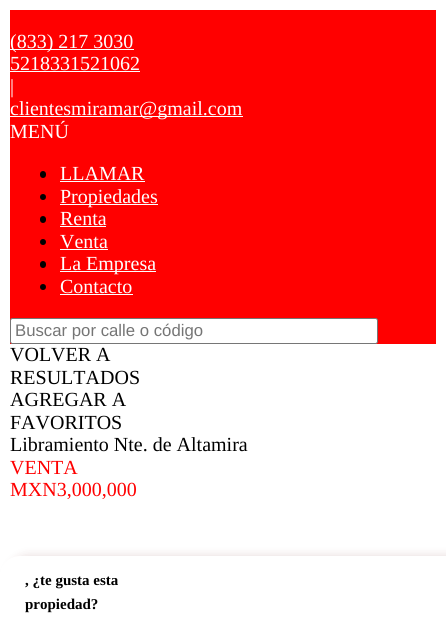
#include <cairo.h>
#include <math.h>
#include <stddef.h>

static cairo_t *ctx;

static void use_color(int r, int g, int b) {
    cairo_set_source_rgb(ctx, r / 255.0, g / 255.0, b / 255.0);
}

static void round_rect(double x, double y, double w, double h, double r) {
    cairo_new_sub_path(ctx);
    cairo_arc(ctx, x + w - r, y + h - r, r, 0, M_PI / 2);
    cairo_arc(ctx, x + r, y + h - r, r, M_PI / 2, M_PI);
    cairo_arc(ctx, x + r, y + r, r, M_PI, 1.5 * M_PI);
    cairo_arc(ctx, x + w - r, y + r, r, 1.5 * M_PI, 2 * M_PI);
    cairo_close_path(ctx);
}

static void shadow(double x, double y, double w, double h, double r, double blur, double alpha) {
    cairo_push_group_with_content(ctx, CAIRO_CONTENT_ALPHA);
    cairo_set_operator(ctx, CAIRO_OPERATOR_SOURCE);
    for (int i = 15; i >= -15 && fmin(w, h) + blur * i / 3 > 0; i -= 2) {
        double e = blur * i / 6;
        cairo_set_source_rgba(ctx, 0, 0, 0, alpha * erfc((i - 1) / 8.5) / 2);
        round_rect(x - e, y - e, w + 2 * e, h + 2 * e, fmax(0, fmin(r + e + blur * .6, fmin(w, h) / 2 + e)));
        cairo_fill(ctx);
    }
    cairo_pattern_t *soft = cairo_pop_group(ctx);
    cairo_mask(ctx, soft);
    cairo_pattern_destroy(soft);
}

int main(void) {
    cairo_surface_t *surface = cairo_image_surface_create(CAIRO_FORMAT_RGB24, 446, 628);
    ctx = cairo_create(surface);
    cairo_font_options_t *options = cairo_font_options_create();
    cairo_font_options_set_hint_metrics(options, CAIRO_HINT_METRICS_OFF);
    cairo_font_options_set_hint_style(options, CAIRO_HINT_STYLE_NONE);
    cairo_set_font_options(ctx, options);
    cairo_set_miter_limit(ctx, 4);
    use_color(255, 255, 255);
    cairo_paint(ctx);
    use_color(255, 0, 0);
    cairo_rectangle(ctx, 10, 10, 426, 334);
    cairo_fill(ctx);
    use_color(255, 255, 255);
    cairo_rectangle(ctx, 10, 49, 124, 1);
    cairo_fill(ctx);
    cairo_select_font_face(ctx, "Liberation Serif", CAIRO_FONT_SLANT_NORMAL, CAIRO_FONT_WEIGHT_NORMAL);
    cairo_set_font_size(ctx, 20);
    cairo_move_to(ctx, 10, 48);
    cairo_show_text(ctx, "(833) 217 3030");
    cairo_move_to(ctx, 10, 70);
    cairo_show_text(ctx, "5218331521062");
    cairo_rectangle(ctx, 10, 71, 130, 1);
    cairo_fill(ctx);
    cairo_move_to(ctx, 10, 93);
    cairo_show_text(ctx, "|");
    cairo_rectangle(ctx, 10, 116, 233, 1);
    cairo_fill(ctx);
    cairo_move_to(ctx, 10, 115);
    cairo_show_text(ctx, "clientesmiramar@gmail.com");
    cairo_move_to(ctx, 10, 138);
    cairo_show_text(ctx, "MENÚ");
    use_color(0, 0, 0);
    round_rect(40, 171, 6, 7, 3);
    cairo_fill(ctx);
    use_color(255, 255, 255);
    cairo_move_to(ctx, 60, 180);
    cairo_show_text(ctx, "LLAMAR");
    cairo_rectangle(ctx, 60, 181, 85, 1);
    cairo_fill(ctx);
    use_color(0, 0, 0);
    cairo_arc(ctx, 43, 197, 3, 0, 2 * M_PI);
    cairo_fill(ctx);
    use_color(255, 255, 255);
    cairo_rectangle(ctx, 60, 204, 98, 1);
    cairo_fill(ctx);
    cairo_move_to(ctx, 60, 203);
    cairo_show_text(ctx, "Propiedades");
    use_color(0, 0, 0);
    round_rect(40, 216, 6, 7, 3);
    cairo_fill(ctx);
    use_color(255, 255, 255);
    cairo_move_to(ctx, 60, 225);
    cairo_show_text(ctx, "Renta");
    cairo_rectangle(ctx, 60, 226, 46, 1);
    cairo_fill(ctx);
    use_color(0, 0, 0);
    cairo_arc(ctx, 43, 242, 3, 0, 2 * M_PI);
    cairo_fill(ctx);
    use_color(255, 255, 255);
    cairo_move_to(ctx, 60, 248);
    cairo_show_text(ctx, "Venta");
    cairo_rectangle(ctx, 60, 249, 48, 1);
    cairo_fill(ctx);
    use_color(0, 0, 0);
    round_rect(40, 261, 6, 7, 3);
    cairo_fill(ctx);
    use_color(255, 255, 255);
    cairo_rectangle(ctx, 60, 271, 96, 1);
    cairo_fill(ctx);
    cairo_move_to(ctx, 60, 270);
    cairo_show_text(ctx, "La Empresa");
    use_color(0, 0, 0);
    cairo_new_path(ctx);
    cairo_arc(ctx, 43, 287, 3, 0, 2 * M_PI);
    cairo_fill(ctx);
    use_color(255, 255, 255);
    cairo_move_to(ctx, 60, 293);
    cairo_show_text(ctx, "Contacto");
    cairo_rectangle(ctx, 60, 294, 73, 1);
    cairo_fill(ctx);
    round_rect(10.5, 318.5, 367, 25, 2);
    cairo_fill_preserve(ctx);
    use_color(118, 118, 118);
    cairo_set_line_width(ctx, 1);
    cairo_stroke(ctx);
    cairo_select_font_face(ctx, "Liberation Sans", CAIRO_FONT_SLANT_NORMAL, CAIRO_FONT_WEIGHT_NORMAL);
    cairo_set_font_size(ctx, 16.75);
    use_color(117, 117, 117);
    cairo_move_to(ctx, 15, 336);
    cairo_show_text(ctx, "Buscar por calle o código");
    cairo_select_font_face(ctx, "Liberation Serif", CAIRO_FONT_SLANT_NORMAL, CAIRO_FONT_WEIGHT_NORMAL);
    cairo_set_font_size(ctx, 20);
    use_color(0, 0, 0);
    cairo_move_to(ctx, 10, 361);
    cairo_show_text(ctx, "VOLVER A");
    cairo_move_to(ctx, 10, 384);
    cairo_show_text(ctx, "RESULTADOS");
    cairo_move_to(ctx, 10, 406);
    cairo_show_text(ctx, "AGREGAR A");
    cairo_move_to(ctx, 10, 429);
    cairo_show_text(ctx, "FAVORITOS");
    cairo_move_to(ctx, 10, 451);
    cairo_show_text(ctx, "Libramiento Nte. de Altamira");
    use_color(255, 0, 0);
    cairo_move_to(ctx, 10, 474);
    cairo_show_text(ctx, "VENTA");
    cairo_move_to(ctx, 10, 496);
    cairo_show_text(ctx, "MXN3,000,000");
    use_color(92, 4, 4);
    shadow(8, 556, 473, 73, 20, 5, 0.15);
    use_color(255, 255, 255);
    cairo_new_path(ctx);
    cairo_move_to(ctx, 20, 556);
    cairo_line_to(ctx, 446, 556);
    cairo_curve_to(ctx, 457, 556, 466, 565, 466, 576);
    cairo_line_to(ctx, 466, 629);
    cairo_line_to(ctx, 0, 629);
    cairo_line_to(ctx, 0, 576);
    cairo_curve_to(ctx, 0, 565, 9, 556, 20, 556);
    cairo_close_path(ctx);
    cairo_fill(ctx);
    cairo_select_font_face(ctx, "Liberation Serif", CAIRO_FONT_SLANT_NORMAL, CAIRO_FONT_WEIGHT_BOLD);
    cairo_set_font_size(ctx, 15);
    use_color(0, 0, 0);
    cairo_move_to(ctx, 25, 585);
    cairo_show_text(ctx, ", ¿te gusta esta");
    cairo_move_to(ctx, 25, 609);
    cairo_show_text(ctx, "propiedad?");
    cairo_surface_write_to_png(surface, "result.png");
    cairo_font_options_destroy(options);
    cairo_destroy(ctx);
    cairo_surface_destroy(surface);
    return 0;
}
